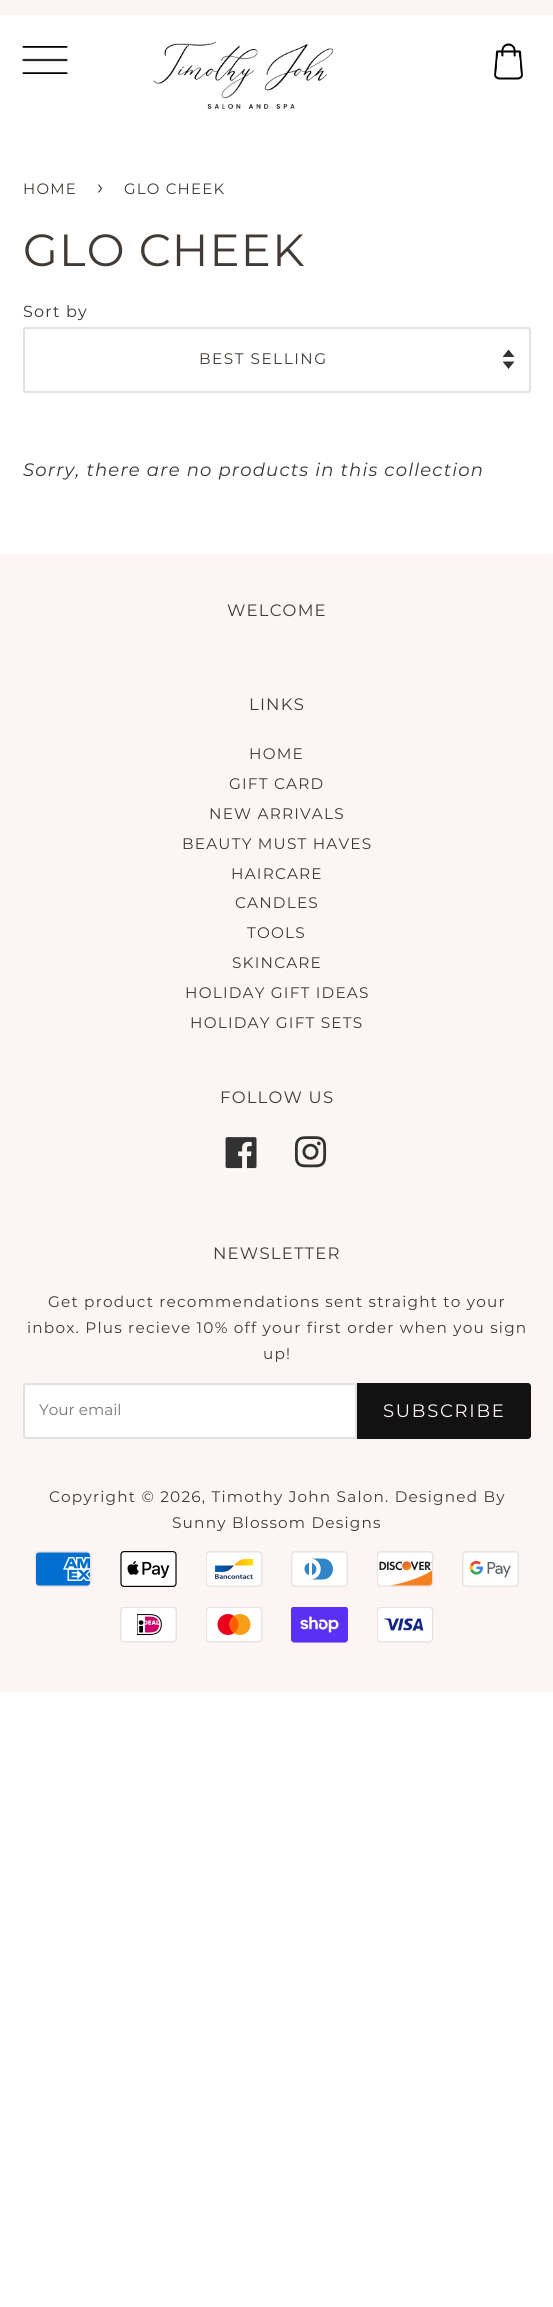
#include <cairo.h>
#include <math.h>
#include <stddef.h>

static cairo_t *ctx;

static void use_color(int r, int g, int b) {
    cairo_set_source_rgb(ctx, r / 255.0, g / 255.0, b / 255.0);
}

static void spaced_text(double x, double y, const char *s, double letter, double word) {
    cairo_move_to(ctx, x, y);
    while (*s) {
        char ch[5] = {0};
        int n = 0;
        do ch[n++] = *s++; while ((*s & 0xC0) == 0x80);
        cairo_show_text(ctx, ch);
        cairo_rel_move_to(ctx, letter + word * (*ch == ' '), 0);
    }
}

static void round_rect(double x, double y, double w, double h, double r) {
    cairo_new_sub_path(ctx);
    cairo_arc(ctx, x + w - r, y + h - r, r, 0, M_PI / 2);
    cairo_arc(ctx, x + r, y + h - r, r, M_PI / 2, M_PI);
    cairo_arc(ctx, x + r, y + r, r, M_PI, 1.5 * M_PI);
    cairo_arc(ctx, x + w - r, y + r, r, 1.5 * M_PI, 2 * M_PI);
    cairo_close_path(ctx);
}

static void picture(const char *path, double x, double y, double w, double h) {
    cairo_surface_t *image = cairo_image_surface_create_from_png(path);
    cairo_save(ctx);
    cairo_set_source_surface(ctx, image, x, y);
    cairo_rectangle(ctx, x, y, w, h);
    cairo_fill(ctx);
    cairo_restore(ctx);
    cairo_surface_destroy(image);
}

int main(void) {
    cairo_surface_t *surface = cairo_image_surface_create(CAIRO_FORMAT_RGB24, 553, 2307);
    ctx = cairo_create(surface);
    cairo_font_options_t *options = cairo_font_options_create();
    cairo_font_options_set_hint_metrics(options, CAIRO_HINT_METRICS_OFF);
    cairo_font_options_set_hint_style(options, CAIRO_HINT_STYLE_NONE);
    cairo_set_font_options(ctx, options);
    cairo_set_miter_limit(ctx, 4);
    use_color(255, 255, 255);
    cairo_paint(ctx);
    use_color(252, 244, 245);
    cairo_rectangle(ctx, 0, 0, 553, 15);
    cairo_fill(ctx);
    picture("img1.png", 22, 46, 46, 28);
    picture("img2.png", 153, 41, 181, 69);
    picture("img3.png", 494, 43, 29, 37);
    cairo_select_font_face(ctx, "Montserrat", CAIRO_FONT_SLANT_NORMAL, CAIRO_FONT_WEIGHT_NORMAL);
    cairo_set_font_size(ctx, 15);
    use_color(64, 59, 55);
    spaced_text(23, 194, "HOME", 1.2, 0);
    cairo_set_font_size(ctx, 21);
    spaced_text(97, 194, "›", 1.2, 0);
    cairo_set_font_size(ctx, 15);
    spaced_text(124, 194, "GLO CHEEK", 1.2, 0);
    cairo_set_font_size(ctx, 45);
    spaced_text(23, 266, "GLO CHEEK", 1.2, 0);
    cairo_set_font_size(ctx, 16);
    use_color(55, 55, 55);
    spaced_text(23, 317, "Sort by", 1.2, 0);
    picture("img4.png", 503, 350, 12, 19);
    round_rect(24, 328, 506, 64, 2);
    use_color(226, 226, 225);
    cairo_stroke(ctx);
    cairo_set_font_size(ctx, 15.3);
    use_color(64, 59, 55);
    spaced_text(199, 364, "BEST SELLING", 1.5, 0);
    cairo_select_font_face(ctx, "Montserrat", CAIRO_FONT_SLANT_ITALIC, CAIRO_FONT_WEIGHT_NORMAL);
    cairo_set_font_size(ctx, 18);
    use_color(55, 55, 55);
    spaced_text(23, 476, "Sorry, there are no products in this collection", 1.2, 0);
    use_color(253, 244, 244);
    cairo_rectangle(ctx, 0, 554, 553, 1138);
    cairo_fill(ctx);
    cairo_select_font_face(ctx, "Montserrat", CAIRO_FONT_SLANT_NORMAL, CAIRO_FONT_WEIGHT_NORMAL);
    cairo_set_font_size(ctx, 16.5);
    use_color(64, 59, 55);
    spaced_text(227, 616, "WELCOME", 1.2, 0);
    spaced_text(249, 710, "LINKS", 1.2, 0);
    cairo_set_font_size(ctx, 15.3);
    spaced_text(249, 759, "HOME", 1.2, 0);
    spaced_text(229, 789, "GIFT CARD", 1.2, 0);
    spaced_text(209, 819, "NEW ARRIVALS", 1.2, 0);
    spaced_text(182, 849, "BEAUTY MUST HAVES", 1.2, 0);
    spaced_text(231, 879, "HAIRCARE", 1.2, 0);
    spaced_text(235, 908, "CANDLES", 1.2, 0);
    spaced_text(247, 938, "TOOLS", 1.2, 0);
    spaced_text(232, 968, "SKINCARE", 1.2, 0);
    spaced_text(185, 998, "HOLIDAY GIFT IDEAS", 1.2, 0);
    spaced_text(190, 1028, "HOLIDAY GIFT SETS", 1.2, 0);
    cairo_set_font_size(ctx, 16.5);
    spaced_text(220, 1103, "FOLLOW US", 1.2, 0);
    picture("img5.png", 225, 1137, 32, 32);
    picture("img6.png", 294, 1136, 33, 32);
    spaced_text(213, 1259, "NEWSLETTER", 1.2, 0);
    cairo_set_font_size(ctx, 15.3);
    spaced_text(48, 1307, "Get product recommendations sent straight to your", 1.2, 0);
    spaced_text(27, 1333, "inbox. Plus recieve 10% off your first order when you sign", 1.2, 0);
    spaced_text(263, 1359, "up!", 1.2, 0);
    use_color(255, 255, 255);
    cairo_new_path(ctx);
    cairo_move_to(ctx, 26, 1383);
    cairo_line_to(ctx, 357, 1383);
    cairo_line_to(ctx, 357, 1439);
    cairo_line_to(ctx, 26, 1439);
    cairo_curve_to(ctx, 24.5, 1439, 23, 1437.5, 23, 1436);
    cairo_line_to(ctx, 23, 1386);
    cairo_curve_to(ctx, 23, 1384.5, 24.5, 1383, 26, 1383);
    cairo_close_path(ctx);
    cairo_fill(ctx);
    cairo_new_path(ctx);
    cairo_move_to(ctx, 26, 1384);
    cairo_line_to(ctx, 356, 1384);
    cairo_line_to(ctx, 356, 1438);
    cairo_line_to(ctx, 26, 1438);
    cairo_curve_to(ctx, 25, 1438, 24, 1437, 24, 1436);
    cairo_line_to(ctx, 24, 1386);
    cairo_curve_to(ctx, 24, 1385, 25, 1384, 26, 1384);
    cairo_close_path(ctx);
    cairo_set_source_rgba(ctx, 0.251, 0.231, 0.216, 0.15);
    cairo_stroke(ctx);
    use_color(117, 117, 117);
    cairo_move_to(ctx, 39, 1415);
    cairo_show_text(ctx, "Your email");
    use_color(18, 18, 18);
    cairo_new_path(ctx);
    cairo_move_to(ctx, 357, 1383);
    cairo_line_to(ctx, 528, 1383);
    cairo_curve_to(ctx, 529.5, 1383, 531, 1384.5, 531, 1386);
    cairo_line_to(ctx, 531, 1436);
    cairo_curve_to(ctx, 531, 1437.5, 529.5, 1439, 528, 1439);
    cairo_line_to(ctx, 357, 1439);
    cairo_close_path(ctx);
    cairo_fill(ctx);
    cairo_set_font_size(ctx, 18);
    use_color(252, 244, 245);
    spaced_text(383, 1417, "SUBSCRIBE", 1.75, 0);
    cairo_set_font_size(ctx, 15.3);
    use_color(64, 59, 55);
    spaced_text(49, 1502, "Copyright © 2026, Timothy John Salon. Designed By", 1.2, 0);
    spaced_text(172, 1528, "Sunny Blossom Designs", 1.2, 0);
    picture("img7.png", 35, 1551, 57, 36);
    picture("img8.png", 120, 1551, 57, 36);
    picture("img9.png", 206, 1551, 57, 36);
    picture("img10.png", 291, 1551, 57, 36);
    picture("img11.png", 377, 1551, 57, 36);
    picture("img12.png", 462, 1551, 57, 36);
    picture("img13.png", 120, 1607, 57, 36);
    picture("img14.png", 206, 1607, 57, 36);
    picture("img15.png", 291, 1607, 57, 36);
    picture("img16.png", 377, 1607, 57, 36);
    cairo_surface_write_to_png(surface, "result.png");
    cairo_font_options_destroy(options);
    cairo_destroy(ctx);
    cairo_surface_destroy(surface);
    return 0;
}
